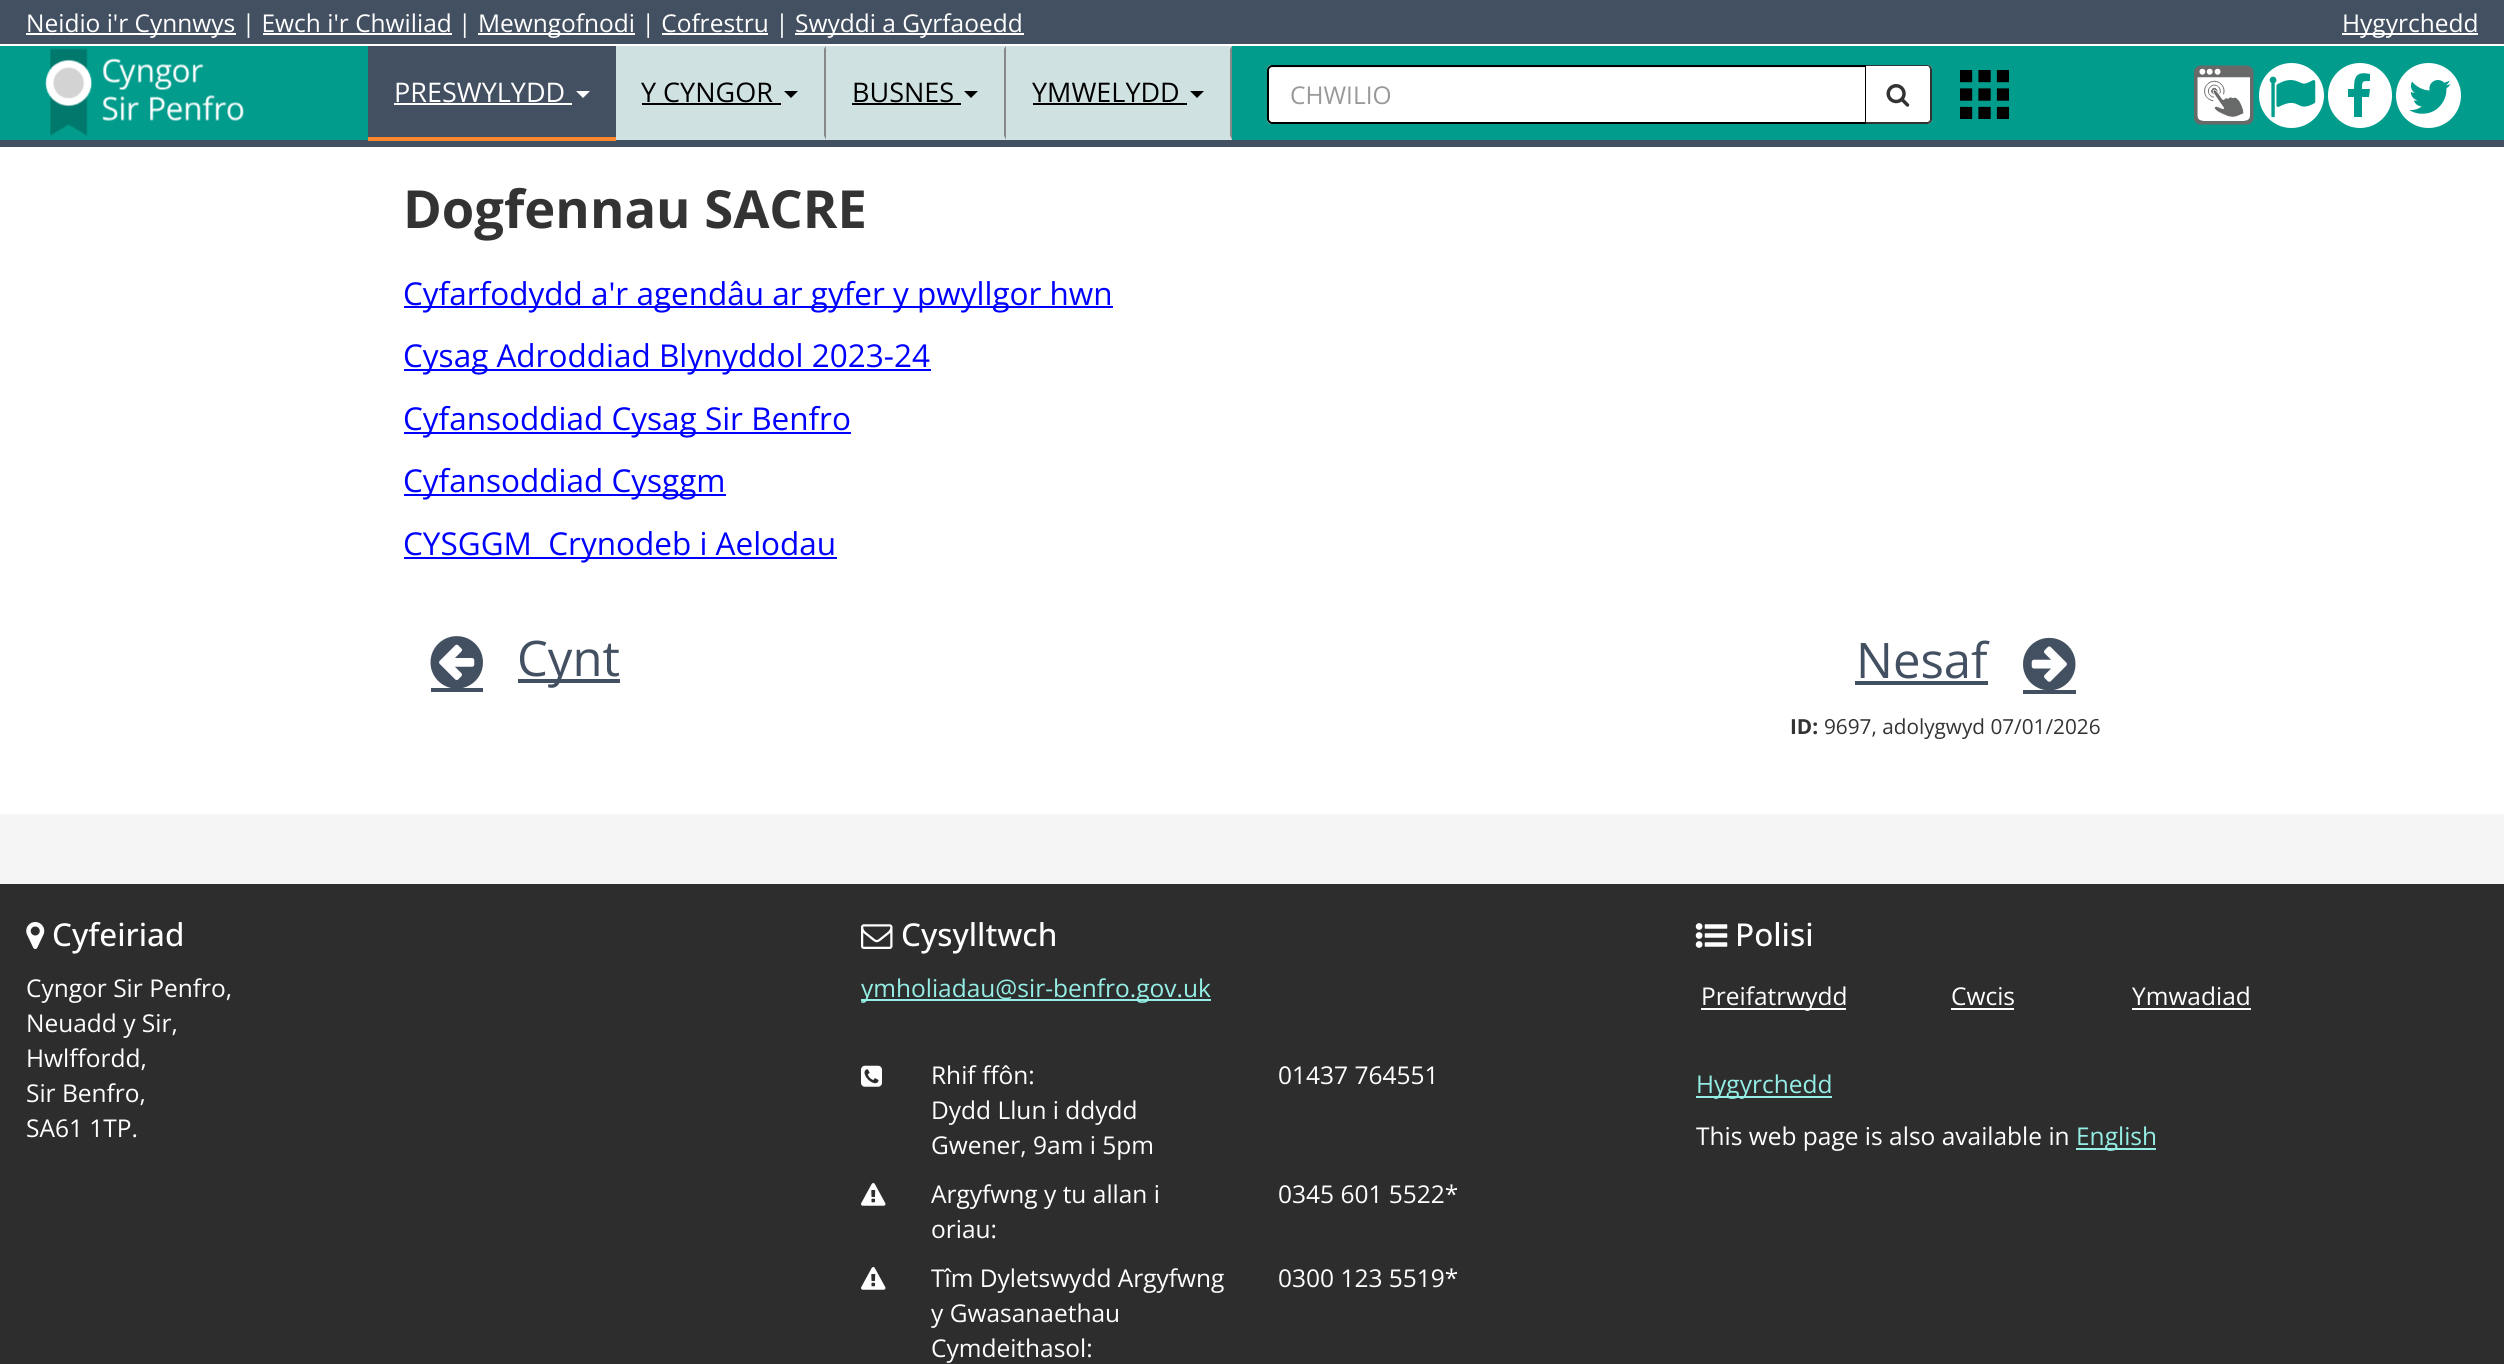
#include <cairo.h>
#include <math.h>
#include <stddef.h>

static cairo_t *ctx;

static void use_color(int r, int g, int b) {
    cairo_set_source_rgb(ctx, r / 255.0, g / 255.0, b / 255.0);
}

static void round_rect(double x, double y, double w, double h, double r) {
    cairo_new_sub_path(ctx);
    cairo_arc(ctx, x + w - r, y + h - r, r, 0, M_PI / 2);
    cairo_arc(ctx, x + r, y + h - r, r, M_PI / 2, M_PI);
    cairo_arc(ctx, x + r, y + r, r, M_PI, 1.5 * M_PI);
    cairo_arc(ctx, x + w - r, y + r, r, 1.5 * M_PI, 2 * M_PI);
    cairo_close_path(ctx);
}

static void picture(const char *path, double x, double y, double w, double h) {
    cairo_surface_t *image = cairo_image_surface_create_from_png(path);
    cairo_save(ctx);
    cairo_set_source_surface(ctx, image, x, y);
    cairo_rectangle(ctx, x, y, w, h);
    cairo_fill(ctx);
    cairo_restore(ctx);
    cairo_surface_destroy(image);
}

int main(void) {
    cairo_surface_t *surface = cairo_image_surface_create(CAIRO_FORMAT_RGB24, 2504, 1364);
    ctx = cairo_create(surface);
    cairo_font_options_t *options = cairo_font_options_create();
    cairo_font_options_set_hint_metrics(options, CAIRO_HINT_METRICS_OFF);
    cairo_font_options_set_hint_style(options, CAIRO_HINT_STYLE_NONE);
    cairo_set_font_options(ctx, options);
    cairo_set_miter_limit(ctx, 4);
    use_color(255, 255, 255);
    cairo_paint(ctx);
    use_color(1, 156, 140);
    cairo_rectangle(ctx, 0, 46, 2504, 94);
    cairo_fill(ctx);
    use_color(67, 80, 97);
    cairo_rectangle(ctx, 0, 140, 2504, 7);
    cairo_fill(ctx);
    cairo_rectangle(ctx, 0, 0, 2504, 44);
    cairo_fill(ctx);
    use_color(255, 255, 255);
    cairo_rectangle(ctx, 26, 33, 210, 2);
    cairo_fill(ctx);
    cairo_select_font_face(ctx, "Open Sans", CAIRO_FONT_SLANT_NORMAL, CAIRO_FONT_WEIGHT_NORMAL);
    cairo_set_font_size(ctx, 24.5);
    cairo_move_to(ctx, 26, 32);
    cairo_show_text(ctx, "Neidio i'r Cynnwys | Ewch i'r Chwiliad |");
    cairo_rectangle(ctx, 478, 33, 157, 2);
    cairo_fill(ctx);
    cairo_move_to(ctx, 478, 32);
    cairo_show_text(ctx, "Mewngofnodi | Cofrestru |");
    cairo_rectangle(ctx, 795, 33, 229, 2);
    cairo_fill(ctx);
    cairo_move_to(ctx, 795, 32);
    cairo_show_text(ctx, "Swyddi a Gyrfaoedd");
    cairo_rectangle(ctx, 2342, 33, 136, 2);
    cairo_fill(ctx);
    cairo_move_to(ctx, 2342, 32);
    cairo_show_text(ctx, "Hygyrchedd");
    cairo_rectangle(ctx, 263, 33, 189, 2);
    cairo_fill(ctx);
    cairo_rectangle(ctx, 662, 33, 106, 2);
    cairo_fill(ctx);
    picture("img1.png", 45, 48, 199, 88);
    use_color(67, 80, 97);
    cairo_rectangle(ctx, 368, 46, 248, 91);
    cairo_fill(ctx);
    use_color(255, 135, 47);
    cairo_rectangle(ctx, 368, 137, 248, 4);
    cairo_fill(ctx);
    cairo_set_font_size(ctx, 27);
    use_color(255, 255, 255);
    cairo_move_to(ctx, 394, 102);
    cairo_show_text(ctx, "PRESWYLYDD");
    cairo_rectangle(ctx, 394, 103, 178, 2);
    cairo_fill(ctx);
    cairo_new_path(ctx);
    cairo_move_to(ctx, 576, 91);
    cairo_line_to(ctx, 590, 91);
    cairo_line_to(ctx, 583, 98);
    cairo_close_path(ctx);
    cairo_fill(ctx);
    use_color(208, 225, 225);
    cairo_rectangle(ctx, 616, 46, 616, 94);
    cairo_fill(ctx);
    use_color(136, 136, 136);
    cairo_new_path(ctx);
    cairo_move_to(ctx, 826, 46);
    cairo_line_to(ctx, 826, 140);
    cairo_line_to(ctx, 824, 136);
    cairo_line_to(ctx, 824, 49);
    cairo_close_path(ctx);
    cairo_fill(ctx);
    use_color(208, 225, 225);
    cairo_new_path(ctx);
    cairo_move_to(ctx, 826, 140);
    cairo_line_to(ctx, 616, 140);
    cairo_line_to(ctx, 616, 136);
    cairo_line_to(ctx, 824, 136);
    cairo_close_path(ctx);
    cairo_fill(ctx);
    use_color(0, 0, 0);
    cairo_move_to(ctx, 641, 102);
    cairo_show_text(ctx, "Y CYNGOR");
    cairo_rectangle(ctx, 642, 103, 139, 2);
    cairo_fill(ctx);
    cairo_new_path(ctx);
    cairo_move_to(ctx, 784, 91);
    cairo_line_to(ctx, 798, 91);
    cairo_line_to(ctx, 791, 98);
    cairo_close_path(ctx);
    cairo_fill(ctx);
    use_color(136, 136, 136);
    cairo_new_path(ctx);
    cairo_move_to(ctx, 1006, 46);
    cairo_line_to(ctx, 1006, 140);
    cairo_line_to(ctx, 1004, 136);
    cairo_line_to(ctx, 1004, 49);
    cairo_close_path(ctx);
    cairo_fill(ctx);
    use_color(208, 225, 225);
    cairo_new_path(ctx);
    cairo_move_to(ctx, 1006, 140);
    cairo_line_to(ctx, 826, 140);
    cairo_line_to(ctx, 826, 136);
    cairo_line_to(ctx, 1004, 136);
    cairo_close_path(ctx);
    cairo_fill(ctx);
    use_color(0, 0, 0);
    cairo_move_to(ctx, 852, 102);
    cairo_show_text(ctx, "BUSNES");
    cairo_rectangle(ctx, 852, 103, 109, 2);
    cairo_fill(ctx);
    cairo_new_path(ctx);
    cairo_move_to(ctx, 964, 91);
    cairo_line_to(ctx, 978, 91);
    cairo_line_to(ctx, 971, 98);
    cairo_close_path(ctx);
    cairo_fill(ctx);
    use_color(136, 136, 136);
    cairo_new_path(ctx);
    cairo_move_to(ctx, 1232, 46);
    cairo_line_to(ctx, 1232, 140);
    cairo_line_to(ctx, 1230, 136);
    cairo_line_to(ctx, 1230, 49);
    cairo_close_path(ctx);
    cairo_fill(ctx);
    use_color(208, 225, 225);
    cairo_new_path(ctx);
    cairo_move_to(ctx, 1232, 140);
    cairo_line_to(ctx, 1006, 140);
    cairo_line_to(ctx, 1006, 136);
    cairo_line_to(ctx, 1230, 136);
    cairo_close_path(ctx);
    cairo_fill(ctx);
    use_color(0, 0, 0);
    cairo_move_to(ctx, 1032, 102);
    cairo_show_text(ctx, "YMWELYDD");
    cairo_rectangle(ctx, 1033, 103, 154, 2);
    cairo_fill(ctx);
    cairo_new_path(ctx);
    cairo_move_to(ctx, 1190, 91);
    cairo_line_to(ctx, 1204, 91);
    cairo_line_to(ctx, 1197, 98);
    cairo_close_path(ctx);
    cairo_fill(ctx);
    use_color(255, 255, 255);
    cairo_new_path(ctx);
    cairo_move_to(ctx, 1272, 65);
    cairo_line_to(ctx, 1867, 65);
    cairo_line_to(ctx, 1867, 124);
    cairo_line_to(ctx, 1272, 124);
    cairo_curve_to(ctx, 1269, 124, 1267, 122, 1267, 119);
    cairo_line_to(ctx, 1267, 70);
    cairo_curve_to(ctx, 1267, 67, 1269, 65, 1272, 65);
    cairo_close_path(ctx);
    cairo_fill(ctx);
    use_color(236, 236, 236);
    cairo_new_path(ctx);
    cairo_move_to(ctx, 1272, 68);
    cairo_line_to(ctx, 1866, 68);
    cairo_line_to(ctx, 1866, 67);
    cairo_line_to(ctx, 1273, 67);
    cairo_curve_to(ctx, 1270, 67, 1269, 69, 1269, 72);
    cairo_curve_to(ctx, 1269, 70, 1270, 68, 1272, 68);
    cairo_close_path(ctx);
    cairo_fill(ctx);
    cairo_new_path(ctx);
    cairo_move_to(ctx, 1272, 66);
    cairo_line_to(ctx, 1866, 66);
    cairo_line_to(ctx, 1866, 123);
    cairo_line_to(ctx, 1272, 123);
    cairo_curve_to(ctx, 1270, 123, 1268, 121, 1268, 119);
    cairo_line_to(ctx, 1268, 70);
    cairo_curve_to(ctx, 1268, 68, 1270, 66, 1272, 66);
    cairo_close_path(ctx);
    use_color(0, 0, 0);
    cairo_stroke(ctx);
    cairo_set_font_size(ctx, 24.5);
    use_color(153, 153, 153);
    cairo_move_to(ctx, 1290, 104);
    cairo_show_text(ctx, "CHWILIO");
    use_color(255, 255, 255);
    cairo_new_path(ctx);
    cairo_move_to(ctx, 1866, 65);
    cairo_line_to(ctx, 1927, 65);
    cairo_curve_to(ctx, 1930, 65, 1932, 67, 1932, 70);
    cairo_line_to(ctx, 1932, 119);
    cairo_curve_to(ctx, 1932, 122, 1930, 124, 1927, 124);
    cairo_line_to(ctx, 1866, 124);
    cairo_close_path(ctx);
    cairo_fill(ctx);
    use_color(51, 51, 51);
    cairo_set_fill_rule(ctx, CAIRO_FILL_RULE_EVEN_ODD);
    cairo_new_path(ctx);
    cairo_move_to(ctx, 1866, 65);
    cairo_line_to(ctx, 1927, 65);
    cairo_curve_to(ctx, 1930, 65, 1932, 67, 1932, 70);
    cairo_line_to(ctx, 1932, 119);
    cairo_curve_to(ctx, 1932, 122, 1930, 124, 1927, 124);
    cairo_line_to(ctx, 1866, 124);
    cairo_close_path(ctx);
    cairo_move_to(ctx, 1866, 66);
    cairo_line_to(ctx, 1927, 66);
    cairo_curve_to(ctx, 1929, 66, 1930, 68, 1930, 70);
    cairo_line_to(ctx, 1930, 119);
    cairo_curve_to(ctx, 1930, 121, 1929, 122, 1927, 122);
    cairo_line_to(ctx, 1866, 122);
    cairo_close_path(ctx);
    cairo_fill(ctx);
    picture("img2.png", 1886, 84, 24, 23);
    picture("img3.png", 1960, 70, 49, 49);
    picture("img4.png", 2194, 65, 60, 60);
    use_color(255, 255, 255);
    cairo_arc(ctx, 2291.5, 95.5, 32.5, 0, 2 * M_PI);
    cairo_fill(ctx);
    picture("img5.png", 2269, 76, 47, 42);
    round_rect(2328, 63, 64, 65, 32);
    cairo_fill(ctx);
    use_color(1, 156, 140);
    cairo_set_fill_rule(ctx, CAIRO_FILL_RULE_WINDING);
    cairo_new_path(ctx);
    cairo_move_to(ctx, 2370, 74);
    cairo_line_to(ctx, 2370, 81);
    cairo_curve_to(ctx, 2362, 81, 2362, 81, 2362, 89);
    cairo_line_to(ctx, 2370, 89);
    cairo_line_to(ctx, 2369, 97);
    cairo_line_to(ctx, 2362, 97);
    cairo_line_to(ctx, 2362, 117);
    cairo_line_to(ctx, 2354, 117);
    cairo_line_to(ctx, 2354, 97);
    cairo_line_to(ctx, 2348, 97);
    cairo_line_to(ctx, 2348, 89);
    cairo_line_to(ctx, 2354, 89);
    cairo_curve_to(ctx, 2354, 77, 2356, 71, 2370, 74);
    cairo_close_path(ctx);
    cairo_fill(ctx);
    use_color(255, 255, 255);
    cairo_arc(ctx, 2428.5, 95.5, 32.5, 0, 2 * M_PI);
    cairo_fill(ctx);
    picture("img6.png", 2409, 80, 42, 34);
    cairo_select_font_face(ctx, "Open Sans", CAIRO_FONT_SLANT_NORMAL, CAIRO_FONT_WEIGHT_BOLD);
    cairo_set_font_size(ctx, 52.5);
    use_color(51, 51, 51);
    cairo_move_to(ctx, 403, 228);
    cairo_show_text(ctx, "Dogfennau SACRE");
    use_color(0, 0, 255);
    cairo_rectangle(ctx, 404, 306, 709, 2);
    cairo_fill(ctx);
    cairo_select_font_face(ctx, "Open Sans", CAIRO_FONT_SLANT_NORMAL, CAIRO_FONT_WEIGHT_NORMAL);
    cairo_set_font_size(ctx, 31.5);
    cairo_move_to(ctx, 403, 305);
    cairo_show_text(ctx, "Cyfarfodydd a'r agendâu ar gyfer y pwyllgor hwn");
    cairo_rectangle(ctx, 404, 369, 527, 2);
    cairo_fill(ctx);
    cairo_move_to(ctx, 403, 367);
    cairo_show_text(ctx, "Cysag Adroddiad Blynyddol 2023-24");
    cairo_rectangle(ctx, 404, 432, 447, 2);
    cairo_fill(ctx);
    cairo_move_to(ctx, 403, 430);
    cairo_show_text(ctx, "Cyfansoddiad Cysag Sir Benfro");
    cairo_rectangle(ctx, 404, 494, 322, 2);
    cairo_fill(ctx);
    cairo_move_to(ctx, 403, 492);
    cairo_show_text(ctx, "Cyfansoddiad Cysggm");
    cairo_rectangle(ctx, 404, 557, 433, 2);
    cairo_fill(ctx);
    cairo_move_to(ctx, 403, 555);
    cairo_show_text(ctx, "CYSGGM  Crynodeb i Aelodau");
    picture("img7.png", 430, 636, 53, 52);
    use_color(67, 80, 97);
    cairo_rectangle(ctx, 518, 679, 102, 4);
    cairo_fill(ctx);
    cairo_set_font_size(ctx, 49);
    cairo_move_to(ctx, 517, 676);
    cairo_show_text(ctx, "Cynt");
    cairo_rectangle(ctx, 431, 688, 52, 4);
    cairo_fill(ctx);
    cairo_move_to(ctx, 1856, 678);
    cairo_show_text(ctx, "Nesaf");
    cairo_rectangle(ctx, 1855, 681, 133, 4);
    cairo_fill(ctx);
    cairo_rectangle(ctx, 2023, 690, 53, 4);
    cairo_fill(ctx);
    picture("img8.png", 2023, 637, 53, 53);
    cairo_select_font_face(ctx, "Open Sans", CAIRO_FONT_SLANT_NORMAL, CAIRO_FONT_WEIGHT_BOLD);
    cairo_set_font_size(ctx, 20.75);
    use_color(51, 51, 51);
    cairo_move_to(ctx, 1790, 734);
    cairo_show_text(ctx, "ID:");
    cairo_select_font_face(ctx, "Open Sans", CAIRO_FONT_SLANT_NORMAL, CAIRO_FONT_WEIGHT_NORMAL);
    cairo_move_to(ctx, 1824, 734);
    cairo_show_text(ctx, "9697, adolygwyd 07/01/2026");
    use_color(245, 245, 245);
    cairo_rectangle(ctx, 0, 814, 2504, 70);
    cairo_fill(ctx);
    use_color(45, 45, 45);
    cairo_rectangle(ctx, 0, 884, 2504, 480);
    cairo_fill(ctx);
    picture("img9.png", 26, 922, 19, 27);
    cairo_select_font_face(ctx, "Open Sans Medium", CAIRO_FONT_SLANT_NORMAL, CAIRO_FONT_WEIGHT_NORMAL);
    cairo_set_font_size(ctx, 31.5);
    use_color(255, 255, 255);
    cairo_move_to(ctx, 52, 946);
    cairo_show_text(ctx, "Cyfeiriad");
    cairo_select_font_face(ctx, "Open Sans", CAIRO_FONT_SLANT_NORMAL, CAIRO_FONT_WEIGHT_NORMAL);
    cairo_set_font_size(ctx, 24.5);
    cairo_move_to(ctx, 26, 997);
    cairo_show_text(ctx, "Cyngor Sir Penfro,");
    cairo_move_to(ctx, 26, 1032);
    cairo_show_text(ctx, "Neuadd y Sir,");
    cairo_move_to(ctx, 26, 1067);
    cairo_show_text(ctx, "Hwlffordd,");
    cairo_move_to(ctx, 26, 1102);
    cairo_show_text(ctx, "Sir Benfro,");
    cairo_move_to(ctx, 26, 1137);
    cairo_show_text(ctx, "SA61 1TP.");
    picture("img10.png", 861, 924, 32, 25);
    cairo_select_font_face(ctx, "Open Sans Medium", CAIRO_FONT_SLANT_NORMAL, CAIRO_FONT_WEIGHT_NORMAL);
    cairo_set_font_size(ctx, 31.5);
    cairo_move_to(ctx, 901, 946);
    cairo_show_text(ctx, "Cysylltwch");
    use_color(149, 238, 229);
    cairo_rectangle(ctx, 861, 999, 350, 2);
    cairo_fill(ctx);
    cairo_select_font_face(ctx, "Open Sans", CAIRO_FONT_SLANT_NORMAL, CAIRO_FONT_WEIGHT_NORMAL);
    cairo_set_font_size(ctx, 24.5);
    cairo_move_to(ctx, 861, 997);
    cairo_show_text(ctx, "ymholiadau@sir-benfro.gov.uk");
    picture("img11.png", 861, 1065, 21, 22);
    use_color(255, 255, 255);
    cairo_move_to(ctx, 931, 1084);
    cairo_show_text(ctx, "Rhif ffôn:");
    cairo_move_to(ctx, 931, 1119);
    cairo_show_text(ctx, "Dydd Llun i ddydd");
    cairo_move_to(ctx, 931, 1154);
    cairo_show_text(ctx, "Gwener, 9am i 5pm");
    cairo_move_to(ctx, 1278, 1084);
    cairo_show_text(ctx, "01437 764551");
    picture("img12.png", 861, 1183, 25, 23);
    cairo_move_to(ctx, 931, 1203);
    cairo_show_text(ctx, "Argyfwng y tu allan i");
    cairo_move_to(ctx, 931, 1238);
    cairo_show_text(ctx, "oriau:");
    cairo_move_to(ctx, 1278, 1203);
    cairo_show_text(ctx, "0345 601 5522*");
    picture("img12.png", 861, 1267, 25, 23);
    cairo_move_to(ctx, 931, 1287);
    cairo_show_text(ctx, "Tîm Dyletswydd Argyfwng");
    cairo_move_to(ctx, 931, 1322);
    cairo_show_text(ctx, "y Gwasanaethau");
    cairo_move_to(ctx, 931, 1357);
    cairo_show_text(ctx, "Cymdeithasol:");
    cairo_move_to(ctx, 1278, 1287);
    cairo_show_text(ctx, "0300 123 5519*");
    picture("img13.png", 1695, 923, 33, 25);
    cairo_select_font_face(ctx, "Open Sans Medium", CAIRO_FONT_SLANT_NORMAL, CAIRO_FONT_WEIGHT_NORMAL);
    cairo_set_font_size(ctx, 31.5);
    cairo_move_to(ctx, 1735, 946);
    cairo_show_text(ctx, "Polisi");
    cairo_rectangle(ctx, 1701, 1008, 145, 2);
    cairo_fill(ctx);
    cairo_select_font_face(ctx, "Open Sans", CAIRO_FONT_SLANT_NORMAL, CAIRO_FONT_WEIGHT_NORMAL);
    cairo_set_font_size(ctx, 24.5);
    cairo_move_to(ctx, 1701, 1005);
    cairo_show_text(ctx, "Preifatrwydd");
    cairo_move_to(ctx, 1951, 1005);
    cairo_show_text(ctx, "Cwcis");
    cairo_rectangle(ctx, 1951, 1008, 63, 2);
    cairo_fill(ctx);
    cairo_move_to(ctx, 2132, 1005);
    cairo_show_text(ctx, "Ymwadiad");
    cairo_rectangle(ctx, 2132, 1008, 119, 2);
    cairo_fill(ctx);
    use_color(149, 238, 229);
    cairo_rectangle(ctx, 1696, 1096, 136, 2);
    cairo_fill(ctx);
    cairo_move_to(ctx, 1696, 1093);
    cairo_show_text(ctx, "Hygyrchedd");
    use_color(255, 255, 255);
    cairo_move_to(ctx, 1696, 1145);
    cairo_show_text(ctx, "This web page is also available in");
    use_color(149, 238, 229);
    cairo_rectangle(ctx, 2076, 1148, 80, 2);
    cairo_fill(ctx);
    cairo_move_to(ctx, 2076, 1145);
    cairo_show_text(ctx, "English");
    cairo_surface_write_to_png(surface, "result.png");
    cairo_font_options_destroy(options);
    cairo_destroy(ctx);
    cairo_surface_destroy(surface);
    return 0;
}
